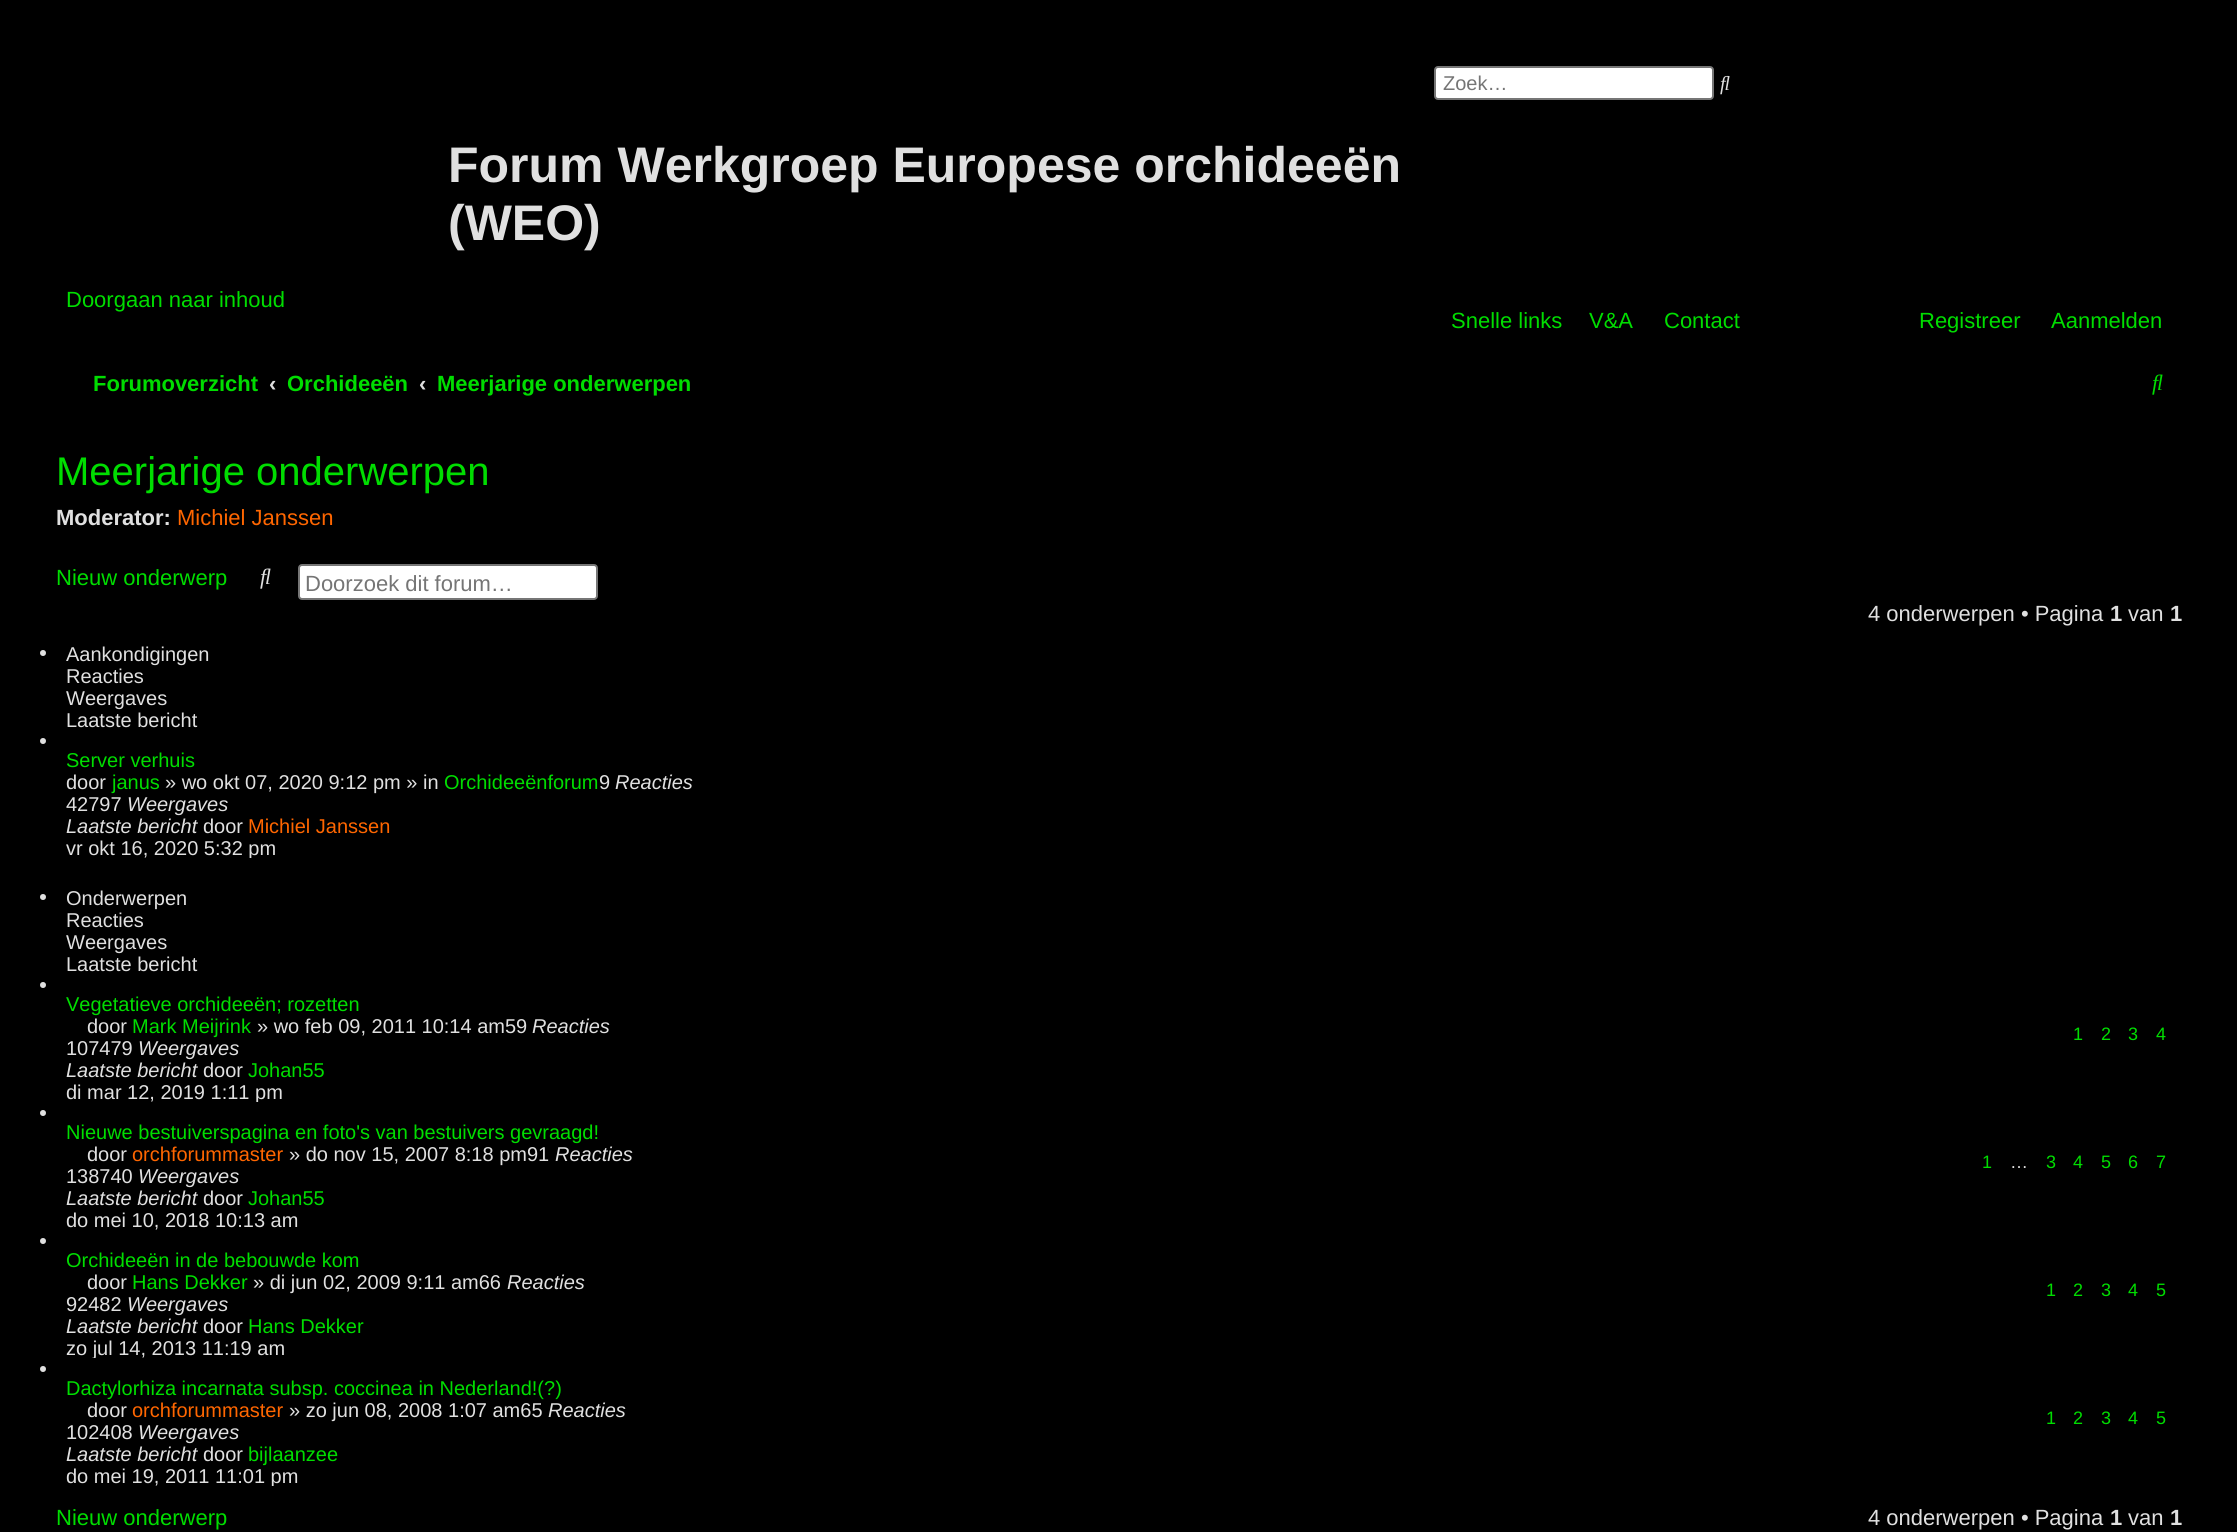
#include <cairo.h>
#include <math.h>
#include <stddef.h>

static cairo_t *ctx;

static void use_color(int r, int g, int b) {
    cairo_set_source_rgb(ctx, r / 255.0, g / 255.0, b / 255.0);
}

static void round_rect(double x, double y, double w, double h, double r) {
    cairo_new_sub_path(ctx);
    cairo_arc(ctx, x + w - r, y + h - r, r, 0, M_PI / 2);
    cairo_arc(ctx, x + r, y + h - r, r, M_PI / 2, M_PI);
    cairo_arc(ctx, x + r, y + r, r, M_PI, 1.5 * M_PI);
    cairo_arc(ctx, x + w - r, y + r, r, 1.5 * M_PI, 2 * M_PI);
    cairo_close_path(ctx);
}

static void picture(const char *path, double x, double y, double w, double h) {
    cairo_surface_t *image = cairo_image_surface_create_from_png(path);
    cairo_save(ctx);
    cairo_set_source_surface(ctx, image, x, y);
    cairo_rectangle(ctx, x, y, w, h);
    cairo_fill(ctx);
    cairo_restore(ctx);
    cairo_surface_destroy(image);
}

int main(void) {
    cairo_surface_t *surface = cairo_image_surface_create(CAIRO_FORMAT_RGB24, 2237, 1532);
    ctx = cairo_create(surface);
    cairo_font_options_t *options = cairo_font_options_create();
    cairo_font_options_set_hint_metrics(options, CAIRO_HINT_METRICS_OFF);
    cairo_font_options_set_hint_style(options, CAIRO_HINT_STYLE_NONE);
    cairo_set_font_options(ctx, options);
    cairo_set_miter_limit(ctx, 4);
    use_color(0, 0, 0);
    cairo_paint(ctx);
    use_color(255, 255, 255);
    round_rect(1435, 67, 278, 32, 3);
    cairo_fill_preserve(ctx);
    use_color(118, 118, 118);
    cairo_stroke(ctx);
    cairo_select_font_face(ctx, "Liberation Sans", CAIRO_FONT_SLANT_NORMAL, CAIRO_FONT_WEIGHT_NORMAL);
    cairo_set_font_size(ctx, 20);
    use_color(117, 117, 117);
    cairo_move_to(ctx, 1443, 90);
    cairo_show_text(ctx, "Zoek…");
    picture("img1.png", 1720, 75, 10, 20);
    cairo_select_font_face(ctx, "Liberation Sans", CAIRO_FONT_SLANT_NORMAL, CAIRO_FONT_WEIGHT_BOLD);
    cairo_set_font_size(ctx, 50);
    use_color(224, 224, 224);
    cairo_move_to(ctx, 448, 182);
    cairo_show_text(ctx, "Forum Werkgroep Europese orchideeën");
    cairo_move_to(ctx, 448, 240);
    cairo_show_text(ctx, "(WEO)");
    cairo_select_font_face(ctx, "Liberation Sans", CAIRO_FONT_SLANT_NORMAL, CAIRO_FONT_WEIGHT_NORMAL);
    cairo_set_font_size(ctx, 22);
    use_color(0, 221, 0);
    cairo_move_to(ctx, 66, 307);
    cairo_show_text(ctx, "Doorgaan naar inhoud");
    cairo_move_to(ctx, 1451, 328);
    cairo_show_text(ctx, "Snelle links");
    cairo_move_to(ctx, 1589, 328);
    cairo_show_text(ctx, "V&A");
    cairo_move_to(ctx, 1664, 328);
    cairo_show_text(ctx, "Contact");
    cairo_move_to(ctx, 1919, 328);
    cairo_show_text(ctx, "Registreer");
    cairo_move_to(ctx, 2051, 328);
    cairo_show_text(ctx, "Aanmelden");
    cairo_select_font_face(ctx, "Liberation Sans", CAIRO_FONT_SLANT_NORMAL, CAIRO_FONT_WEIGHT_BOLD);
    cairo_move_to(ctx, 93, 391);
    cairo_show_text(ctx, "Forumoverzicht");
    use_color(224, 224, 224);
    cairo_move_to(ctx, 269, 391);
    cairo_show_text(ctx, "‹");
    use_color(0, 221, 0);
    cairo_move_to(ctx, 287, 391);
    cairo_show_text(ctx, "Orchideeën");
    use_color(224, 224, 224);
    cairo_move_to(ctx, 419, 391);
    cairo_show_text(ctx, "‹");
    use_color(0, 221, 0);
    cairo_move_to(ctx, 437, 391);
    cairo_show_text(ctx, "Meerjarige onderwerpen");
    picture("img2.png", 2152, 374, 11, 21);
    cairo_select_font_face(ctx, "Liberation Sans", CAIRO_FONT_SLANT_NORMAL, CAIRO_FONT_WEIGHT_NORMAL);
    cairo_set_font_size(ctx, 40);
    cairo_move_to(ctx, 56, 485);
    cairo_show_text(ctx, "Meerjarige onderwerpen");
    cairo_select_font_face(ctx, "Liberation Sans", CAIRO_FONT_SLANT_NORMAL, CAIRO_FONT_WEIGHT_BOLD);
    cairo_set_font_size(ctx, 22);
    use_color(224, 224, 224);
    cairo_move_to(ctx, 56, 525);
    cairo_show_text(ctx, "Moderator:");
    cairo_select_font_face(ctx, "Liberation Sans", CAIRO_FONT_SLANT_NORMAL, CAIRO_FONT_WEIGHT_NORMAL);
    use_color(255, 102, 0);
    cairo_move_to(ctx, 177, 525);
    cairo_show_text(ctx, "Michiel Janssen");
    use_color(0, 221, 0);
    cairo_move_to(ctx, 56, 585);
    cairo_show_text(ctx, "Nieuw onderwerp");
    picture("img3.png", 260, 568, 11, 21);
    use_color(255, 255, 255);
    round_rect(299, 565, 298, 34, 3);
    cairo_fill_preserve(ctx);
    use_color(118, 118, 118);
    cairo_stroke(ctx);
    use_color(117, 117, 117);
    cairo_move_to(ctx, 305, 591);
    cairo_show_text(ctx, "Doorzoek dit forum…");
    use_color(224, 224, 224);
    cairo_move_to(ctx, 1868, 621);
    cairo_show_text(ctx, "4 onderwerpen • Pagina");
    cairo_select_font_face(ctx, "Liberation Sans", CAIRO_FONT_SLANT_NORMAL, CAIRO_FONT_WEIGHT_BOLD);
    cairo_move_to(ctx, 2110, 621);
    cairo_show_text(ctx, "1");
    cairo_select_font_face(ctx, "Liberation Sans", CAIRO_FONT_SLANT_NORMAL, CAIRO_FONT_WEIGHT_NORMAL);
    cairo_move_to(ctx, 2128, 621);
    cairo_show_text(ctx, "van");
    cairo_select_font_face(ctx, "Liberation Sans", CAIRO_FONT_SLANT_NORMAL, CAIRO_FONT_WEIGHT_BOLD);
    cairo_move_to(ctx, 2170, 621);
    cairo_show_text(ctx, "1");
    cairo_new_path(ctx);
    cairo_arc(ctx, 43, 653, 3, 0, 2 * M_PI);
    cairo_fill(ctx);
    cairo_select_font_face(ctx, "Liberation Sans", CAIRO_FONT_SLANT_NORMAL, CAIRO_FONT_WEIGHT_NORMAL);
    cairo_set_font_size(ctx, 20);
    cairo_move_to(ctx, 66, 661);
    cairo_show_text(ctx, "Aankondigingen");
    cairo_move_to(ctx, 66, 683);
    cairo_show_text(ctx, "Reacties");
    cairo_move_to(ctx, 66, 705);
    cairo_show_text(ctx, "Weergaves");
    cairo_move_to(ctx, 66, 727);
    cairo_show_text(ctx, "Laatste bericht");
    cairo_new_path(ctx);
    cairo_arc(ctx, 43, 741, 3, 0, 2 * M_PI);
    cairo_fill(ctx);
    use_color(0, 221, 0);
    cairo_move_to(ctx, 66, 767);
    cairo_show_text(ctx, "Server verhuis");
    use_color(224, 224, 224);
    cairo_move_to(ctx, 66, 789);
    cairo_show_text(ctx, "door");
    use_color(0, 221, 0);
    cairo_move_to(ctx, 112, 789);
    cairo_show_text(ctx, "janus");
    use_color(224, 224, 224);
    cairo_move_to(ctx, 165, 789);
    cairo_show_text(ctx, "» wo okt 07, 2020 9:12 pm » in");
    use_color(0, 221, 0);
    cairo_move_to(ctx, 444, 789);
    cairo_show_text(ctx, "Orchideeënforum");
    use_color(224, 224, 224);
    cairo_move_to(ctx, 599, 789);
    cairo_show_text(ctx, "9");
    cairo_select_font_face(ctx, "Liberation Sans", CAIRO_FONT_SLANT_ITALIC, CAIRO_FONT_WEIGHT_NORMAL);
    cairo_move_to(ctx, 615, 789);
    cairo_show_text(ctx, "Reacties");
    cairo_select_font_face(ctx, "Liberation Sans", CAIRO_FONT_SLANT_NORMAL, CAIRO_FONT_WEIGHT_NORMAL);
    cairo_move_to(ctx, 66, 811);
    cairo_show_text(ctx, "42797");
    cairo_select_font_face(ctx, "Liberation Sans", CAIRO_FONT_SLANT_ITALIC, CAIRO_FONT_WEIGHT_NORMAL);
    cairo_move_to(ctx, 127, 811);
    cairo_show_text(ctx, "Weergaves");
    cairo_move_to(ctx, 66, 833);
    cairo_show_text(ctx, "Laatste bericht");
    cairo_select_font_face(ctx, "Liberation Sans", CAIRO_FONT_SLANT_NORMAL, CAIRO_FONT_WEIGHT_NORMAL);
    cairo_move_to(ctx, 203, 833);
    cairo_show_text(ctx, "door");
    use_color(255, 102, 0);
    cairo_move_to(ctx, 248, 833);
    cairo_show_text(ctx, "Michiel Janssen");
    cairo_save(ctx);
    cairo_rectangle(ctx, 66, 748, 2106, 110);
    cairo_clip(ctx);
    use_color(224, 224, 224);
    cairo_move_to(ctx, 66, 855);
    cairo_show_text(ctx, "vr okt 16, 2020 5:32 pm");
    cairo_restore(ctx);
    use_color(224, 224, 224);
    cairo_new_path(ctx);
    cairo_arc(ctx, 43, 897, 3, 0, 2 * M_PI);
    cairo_fill(ctx);
    cairo_move_to(ctx, 66, 905);
    cairo_show_text(ctx, "Onderwerpen");
    cairo_move_to(ctx, 66, 927);
    cairo_show_text(ctx, "Reacties");
    cairo_move_to(ctx, 66, 949);
    cairo_show_text(ctx, "Weergaves");
    cairo_move_to(ctx, 66, 971);
    cairo_show_text(ctx, "Laatste bericht");
    cairo_new_path(ctx);
    cairo_arc(ctx, 43, 985, 3, 0, 2 * M_PI);
    cairo_fill(ctx);
    use_color(0, 221, 0);
    cairo_move_to(ctx, 66, 1011);
    cairo_show_text(ctx, "Vegetatieve orchideeën; rozetten");
    use_color(224, 224, 224);
    cairo_move_to(ctx, 87, 1033);
    cairo_show_text(ctx, "door");
    use_color(0, 221, 0);
    cairo_move_to(ctx, 132, 1033);
    cairo_show_text(ctx, "Mark Meijrink");
    use_color(224, 224, 224);
    cairo_move_to(ctx, 257, 1033);
    cairo_show_text(ctx, "» wo feb 09, 2011 10:14 am59");
    cairo_set_font_size(ctx, 18);
    use_color(0, 221, 0);
    cairo_move_to(ctx, 2073, 1040);
    cairo_show_text(ctx, "1");
    cairo_move_to(ctx, 2101, 1040);
    cairo_show_text(ctx, "2");
    cairo_move_to(ctx, 2128, 1040);
    cairo_show_text(ctx, "3");
    cairo_move_to(ctx, 2156, 1040);
    cairo_show_text(ctx, "4");
    cairo_select_font_face(ctx, "Liberation Sans", CAIRO_FONT_SLANT_ITALIC, CAIRO_FONT_WEIGHT_NORMAL);
    cairo_set_font_size(ctx, 20);
    use_color(224, 224, 224);
    cairo_move_to(ctx, 532, 1033);
    cairo_show_text(ctx, "Reacties");
    cairo_select_font_face(ctx, "Liberation Sans", CAIRO_FONT_SLANT_NORMAL, CAIRO_FONT_WEIGHT_NORMAL);
    cairo_move_to(ctx, 66, 1055);
    cairo_show_text(ctx, "107479");
    cairo_select_font_face(ctx, "Liberation Sans", CAIRO_FONT_SLANT_ITALIC, CAIRO_FONT_WEIGHT_NORMAL);
    cairo_move_to(ctx, 138, 1055);
    cairo_show_text(ctx, "Weergaves");
    cairo_move_to(ctx, 66, 1077);
    cairo_show_text(ctx, "Laatste bericht");
    cairo_select_font_face(ctx, "Liberation Sans", CAIRO_FONT_SLANT_NORMAL, CAIRO_FONT_WEIGHT_NORMAL);
    cairo_move_to(ctx, 203, 1077);
    cairo_show_text(ctx, "door");
    use_color(0, 221, 0);
    cairo_move_to(ctx, 248, 1077);
    cairo_show_text(ctx, "Johan55");
    cairo_save(ctx);
    cairo_rectangle(ctx, 66, 992, 2106, 110);
    cairo_clip(ctx);
    use_color(224, 224, 224);
    cairo_move_to(ctx, 66, 1099);
    cairo_show_text(ctx, "di mar 12, 2019 1:11 pm");
    cairo_restore(ctx);
    use_color(224, 224, 224);
    cairo_new_path(ctx);
    cairo_arc(ctx, 43, 1113, 3, 0, 2 * M_PI);
    cairo_fill(ctx);
    use_color(0, 221, 0);
    cairo_move_to(ctx, 66, 1139);
    cairo_show_text(ctx, "Nieuwe bestuiverspagina en foto's van bestuivers gevraagd!");
    use_color(224, 224, 224);
    cairo_move_to(ctx, 87, 1161);
    cairo_show_text(ctx, "door");
    use_color(255, 102, 0);
    cairo_move_to(ctx, 132, 1161);
    cairo_show_text(ctx, "orchforummaster");
    use_color(224, 224, 224);
    cairo_move_to(ctx, 289, 1161);
    cairo_show_text(ctx, "» do nov 15, 2007 8:18 pm91");
    cairo_set_font_size(ctx, 18);
    use_color(0, 221, 0);
    cairo_move_to(ctx, 1982, 1168);
    cairo_show_text(ctx, "1");
    use_color(224, 224, 224);
    cairo_move_to(ctx, 2010, 1168);
    cairo_show_text(ctx, "…");
    use_color(0, 221, 0);
    cairo_move_to(ctx, 2046, 1168);
    cairo_show_text(ctx, "3");
    cairo_move_to(ctx, 2073, 1168);
    cairo_show_text(ctx, "4");
    cairo_move_to(ctx, 2101, 1168);
    cairo_show_text(ctx, "5");
    cairo_move_to(ctx, 2128, 1168);
    cairo_show_text(ctx, "6");
    cairo_move_to(ctx, 2156, 1168);
    cairo_show_text(ctx, "7");
    cairo_select_font_face(ctx, "Liberation Sans", CAIRO_FONT_SLANT_ITALIC, CAIRO_FONT_WEIGHT_NORMAL);
    cairo_set_font_size(ctx, 20);
    use_color(224, 224, 224);
    cairo_move_to(ctx, 555, 1161);
    cairo_show_text(ctx, "Reacties");
    cairo_select_font_face(ctx, "Liberation Sans", CAIRO_FONT_SLANT_NORMAL, CAIRO_FONT_WEIGHT_NORMAL);
    cairo_move_to(ctx, 66, 1183);
    cairo_show_text(ctx, "138740");
    cairo_select_font_face(ctx, "Liberation Sans", CAIRO_FONT_SLANT_ITALIC, CAIRO_FONT_WEIGHT_NORMAL);
    cairo_move_to(ctx, 138, 1183);
    cairo_show_text(ctx, "Weergaves");
    cairo_move_to(ctx, 66, 1205);
    cairo_show_text(ctx, "Laatste bericht");
    cairo_select_font_face(ctx, "Liberation Sans", CAIRO_FONT_SLANT_NORMAL, CAIRO_FONT_WEIGHT_NORMAL);
    cairo_move_to(ctx, 203, 1205);
    cairo_show_text(ctx, "door");
    use_color(0, 221, 0);
    cairo_move_to(ctx, 248, 1205);
    cairo_show_text(ctx, "Johan55");
    use_color(224, 224, 224);
    cairo_move_to(ctx, 66, 1227);
    cairo_show_text(ctx, "do mei 10, 2018 10:13 am");
    cairo_new_path(ctx);
    cairo_arc(ctx, 43, 1241, 3, 0, 2 * M_PI);
    cairo_fill(ctx);
    use_color(0, 221, 0);
    cairo_move_to(ctx, 66, 1267);
    cairo_show_text(ctx, "Orchideeën in de bebouwde kom");
    use_color(224, 224, 224);
    cairo_move_to(ctx, 87, 1289);
    cairo_show_text(ctx, "door");
    use_color(0, 221, 0);
    cairo_move_to(ctx, 132, 1289);
    cairo_show_text(ctx, "Hans Dekker");
    use_color(224, 224, 224);
    cairo_move_to(ctx, 253, 1289);
    cairo_show_text(ctx, "» di jun 02, 2009 9:11 am66");
    cairo_set_font_size(ctx, 18);
    use_color(0, 221, 0);
    cairo_move_to(ctx, 2046, 1296);
    cairo_show_text(ctx, "1");
    cairo_move_to(ctx, 2073, 1296);
    cairo_show_text(ctx, "2");
    cairo_move_to(ctx, 2101, 1296);
    cairo_show_text(ctx, "3");
    cairo_move_to(ctx, 2128, 1296);
    cairo_show_text(ctx, "4");
    cairo_move_to(ctx, 2156, 1296);
    cairo_show_text(ctx, "5");
    cairo_select_font_face(ctx, "Liberation Sans", CAIRO_FONT_SLANT_ITALIC, CAIRO_FONT_WEIGHT_NORMAL);
    cairo_set_font_size(ctx, 20);
    use_color(224, 224, 224);
    cairo_move_to(ctx, 507, 1289);
    cairo_show_text(ctx, "Reacties");
    cairo_select_font_face(ctx, "Liberation Sans", CAIRO_FONT_SLANT_NORMAL, CAIRO_FONT_WEIGHT_NORMAL);
    cairo_move_to(ctx, 66, 1311);
    cairo_show_text(ctx, "92482");
    cairo_select_font_face(ctx, "Liberation Sans", CAIRO_FONT_SLANT_ITALIC, CAIRO_FONT_WEIGHT_NORMAL);
    cairo_move_to(ctx, 127, 1311);
    cairo_show_text(ctx, "Weergaves");
    cairo_move_to(ctx, 66, 1333);
    cairo_show_text(ctx, "Laatste bericht");
    cairo_select_font_face(ctx, "Liberation Sans", CAIRO_FONT_SLANT_NORMAL, CAIRO_FONT_WEIGHT_NORMAL);
    cairo_move_to(ctx, 203, 1333);
    cairo_show_text(ctx, "door");
    use_color(0, 221, 0);
    cairo_move_to(ctx, 248, 1333);
    cairo_show_text(ctx, "Hans Dekker");
    cairo_save(ctx);
    cairo_rectangle(ctx, 66, 1248, 2106, 110);
    cairo_clip(ctx);
    use_color(224, 224, 224);
    cairo_move_to(ctx, 66, 1355);
    cairo_show_text(ctx, "zo jul 14, 2013 11:19 am");
    cairo_restore(ctx);
    use_color(224, 224, 224);
    cairo_new_path(ctx);
    cairo_arc(ctx, 43, 1369, 3, 0, 2 * M_PI);
    cairo_fill(ctx);
    use_color(0, 221, 0);
    cairo_move_to(ctx, 66, 1395);
    cairo_show_text(ctx, "Dactylorhiza incarnata subsp. coccinea in Nederland!(?)");
    use_color(224, 224, 224);
    cairo_move_to(ctx, 87, 1417);
    cairo_show_text(ctx, "door");
    use_color(255, 102, 0);
    cairo_move_to(ctx, 132, 1417);
    cairo_show_text(ctx, "orchforummaster");
    use_color(224, 224, 224);
    cairo_move_to(ctx, 289, 1417);
    cairo_show_text(ctx, "» zo jun 08, 2008 1:07 am65");
    cairo_set_font_size(ctx, 18);
    use_color(0, 221, 0);
    cairo_move_to(ctx, 2046, 1424);
    cairo_show_text(ctx, "1");
    cairo_move_to(ctx, 2073, 1424);
    cairo_show_text(ctx, "2");
    cairo_move_to(ctx, 2101, 1424);
    cairo_show_text(ctx, "3");
    cairo_move_to(ctx, 2128, 1424);
    cairo_show_text(ctx, "4");
    cairo_move_to(ctx, 2156, 1424);
    cairo_show_text(ctx, "5");
    cairo_select_font_face(ctx, "Liberation Sans", CAIRO_FONT_SLANT_ITALIC, CAIRO_FONT_WEIGHT_NORMAL);
    cairo_set_font_size(ctx, 20);
    use_color(224, 224, 224);
    cairo_move_to(ctx, 548, 1417);
    cairo_show_text(ctx, "Reacties");
    cairo_select_font_face(ctx, "Liberation Sans", CAIRO_FONT_SLANT_NORMAL, CAIRO_FONT_WEIGHT_NORMAL);
    cairo_move_to(ctx, 66, 1439);
    cairo_show_text(ctx, "102408");
    cairo_select_font_face(ctx, "Liberation Sans", CAIRO_FONT_SLANT_ITALIC, CAIRO_FONT_WEIGHT_NORMAL);
    cairo_move_to(ctx, 138, 1439);
    cairo_show_text(ctx, "Weergaves");
    cairo_move_to(ctx, 66, 1461);
    cairo_show_text(ctx, "Laatste bericht");
    cairo_select_font_face(ctx, "Liberation Sans", CAIRO_FONT_SLANT_NORMAL, CAIRO_FONT_WEIGHT_NORMAL);
    cairo_move_to(ctx, 203, 1461);
    cairo_show_text(ctx, "door");
    use_color(0, 221, 0);
    cairo_move_to(ctx, 248, 1461);
    cairo_show_text(ctx, "bijlaanzee");
    cairo_save(ctx);
    cairo_rectangle(ctx, 66, 1376, 2106, 110);
    cairo_clip(ctx);
    use_color(224, 224, 224);
    cairo_move_to(ctx, 66, 1483);
    cairo_show_text(ctx, "do mei 19, 2011 11:01 pm");
    cairo_restore(ctx);
    cairo_set_font_size(ctx, 22);
    cairo_move_to(ctx, 56, 1525);
    cairo_show_text(ctx, "Nieuw onderwerp");
    use_color(224, 224, 224);
    cairo_move_to(ctx, 1868, 1525);
    cairo_show_text(ctx, "4 onderwerpen • Pagina");
    cairo_select_font_face(ctx, "Liberation Sans", CAIRO_FONT_SLANT_NORMAL, CAIRO_FONT_WEIGHT_BOLD);
    cairo_move_to(ctx, 2110, 1525);
    cairo_show_text(ctx, "1");
    cairo_select_font_face(ctx, "Liberation Sans", CAIRO_FONT_SLANT_NORMAL, CAIRO_FONT_WEIGHT_NORMAL);
    cairo_move_to(ctx, 2128, 1525);
    cairo_show_text(ctx, "van");
    cairo_select_font_face(ctx, "Liberation Sans", CAIRO_FONT_SLANT_NORMAL, CAIRO_FONT_WEIGHT_BOLD);
    cairo_move_to(ctx, 2170, 1525);
    cairo_show_text(ctx, "1");
    cairo_surface_write_to_png(surface, "result.png");
    cairo_font_options_destroy(options);
    cairo_destroy(ctx);
    cairo_surface_destroy(surface);
    return 0;
}
